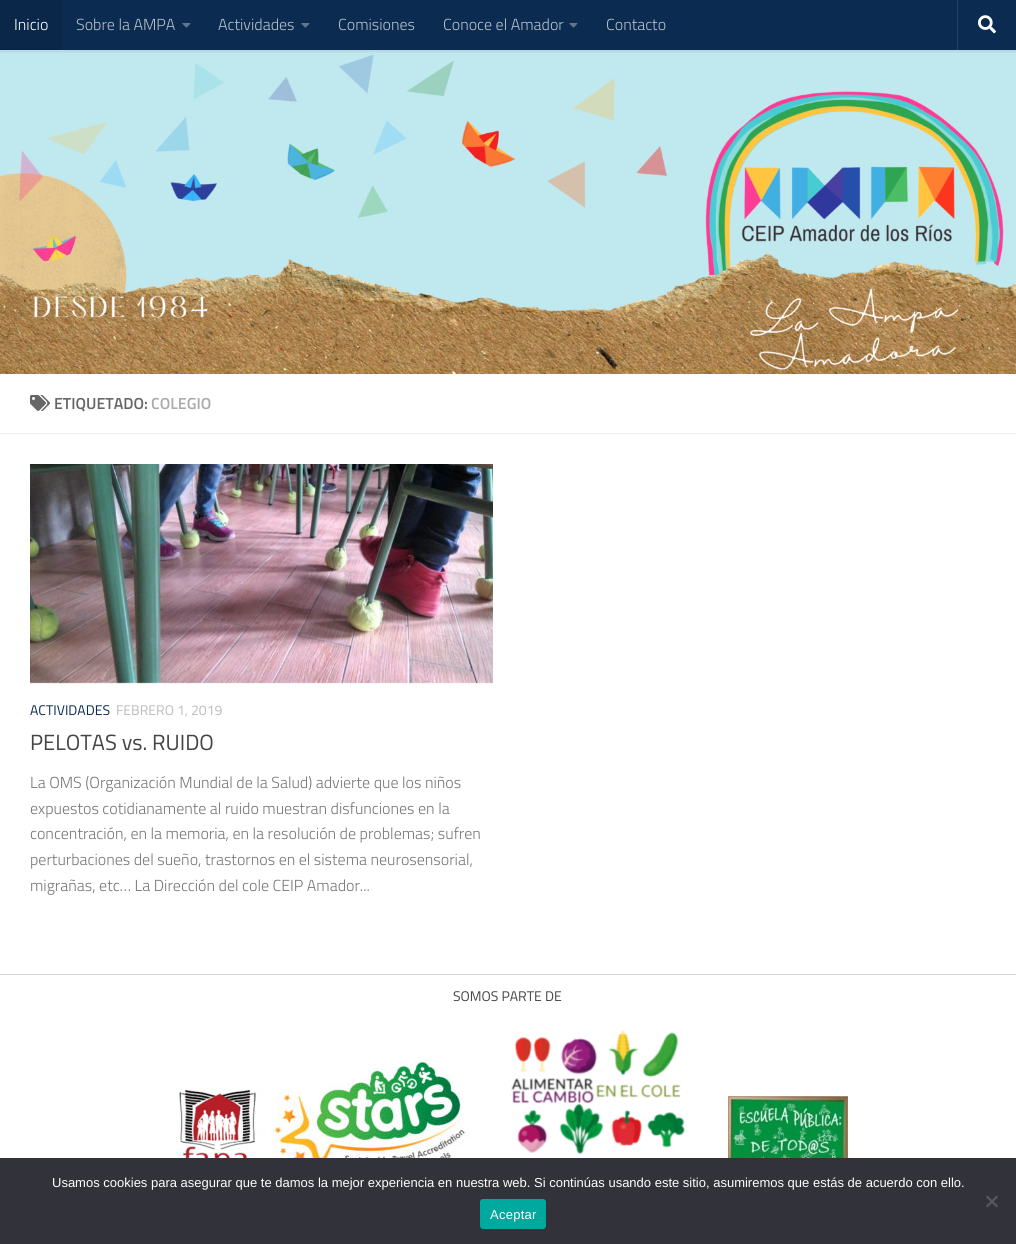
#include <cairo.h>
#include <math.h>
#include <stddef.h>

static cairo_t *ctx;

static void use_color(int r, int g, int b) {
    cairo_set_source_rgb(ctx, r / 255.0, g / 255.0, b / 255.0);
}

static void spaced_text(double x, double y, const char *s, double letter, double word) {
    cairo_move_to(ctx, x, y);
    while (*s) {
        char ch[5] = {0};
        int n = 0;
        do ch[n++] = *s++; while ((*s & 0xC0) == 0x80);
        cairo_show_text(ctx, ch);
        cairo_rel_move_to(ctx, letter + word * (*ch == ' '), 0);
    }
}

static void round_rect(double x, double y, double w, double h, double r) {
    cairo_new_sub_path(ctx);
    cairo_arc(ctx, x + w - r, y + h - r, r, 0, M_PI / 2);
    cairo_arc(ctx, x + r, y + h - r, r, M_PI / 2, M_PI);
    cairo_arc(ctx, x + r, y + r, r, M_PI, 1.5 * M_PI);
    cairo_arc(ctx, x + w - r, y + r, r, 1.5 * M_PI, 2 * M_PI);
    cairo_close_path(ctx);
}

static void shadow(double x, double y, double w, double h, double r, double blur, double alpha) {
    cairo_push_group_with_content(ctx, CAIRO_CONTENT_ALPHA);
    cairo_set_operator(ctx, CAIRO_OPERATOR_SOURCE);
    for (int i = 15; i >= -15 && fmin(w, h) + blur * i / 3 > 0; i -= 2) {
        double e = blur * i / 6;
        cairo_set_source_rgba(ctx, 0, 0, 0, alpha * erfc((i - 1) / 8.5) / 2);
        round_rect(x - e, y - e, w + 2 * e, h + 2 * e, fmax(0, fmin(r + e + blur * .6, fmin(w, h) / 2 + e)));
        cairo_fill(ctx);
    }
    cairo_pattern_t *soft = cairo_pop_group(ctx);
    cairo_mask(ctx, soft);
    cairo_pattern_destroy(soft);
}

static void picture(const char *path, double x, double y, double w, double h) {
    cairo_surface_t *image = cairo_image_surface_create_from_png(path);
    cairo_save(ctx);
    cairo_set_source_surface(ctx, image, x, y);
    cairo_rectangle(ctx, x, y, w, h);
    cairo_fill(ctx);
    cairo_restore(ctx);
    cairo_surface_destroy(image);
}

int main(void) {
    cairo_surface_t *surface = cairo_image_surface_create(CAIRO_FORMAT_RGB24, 1016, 1244);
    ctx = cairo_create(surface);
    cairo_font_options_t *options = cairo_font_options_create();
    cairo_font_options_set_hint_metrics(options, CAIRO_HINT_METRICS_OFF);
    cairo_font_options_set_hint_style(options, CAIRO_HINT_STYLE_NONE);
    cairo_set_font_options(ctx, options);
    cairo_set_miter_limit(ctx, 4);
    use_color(234, 234, 234);
    cairo_paint(ctx);
    use_color(11, 43, 81);
    cairo_rectangle(ctx, 62, 0, 954, 50);
    cairo_fill(ctx);
    use_color(201, 236, 241);
    cairo_rectangle(ctx, 0, 50, 1016, 1);
    cairo_fill(ctx);
    use_color(0, 0, 0);
    shadow(0, 375, 1016, 600, 0, 0.5, 0.1);
    picture("img3.png", 0, 51, 1016, 323);
    cairo_save(ctx);
    cairo_rectangle(ctx, 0, 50, 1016, 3);
    cairo_clip(ctx);
    shadow(0, 0, 1016, 50, 0, 2.5, 0.2);
    cairo_restore(ctx);
    use_color(10, 39, 73);
    cairo_rectangle(ctx, 0, 0, 62, 50);
    cairo_fill(ctx);
    cairo_select_font_face(ctx, "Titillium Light", CAIRO_FONT_SLANT_NORMAL, CAIRO_FONT_WEIGHT_NORMAL);
    cairo_set_font_size(ctx, 16);
    use_color(255, 255, 255);
    cairo_move_to(ctx, 14, 30);
    cairo_show_text(ctx, "Inicio");
    use_color(182, 191, 203);
    cairo_move_to(ctx, 76, 30);
    cairo_show_text(ctx, "Sobre la AMPA");
    picture("img1.png", 182, 23, 9, 5);
    cairo_move_to(ctx, 218, 30);
    cairo_show_text(ctx, "Actividades");
    picture("img1.png", 301, 23, 9, 5);
    cairo_move_to(ctx, 338, 30);
    cairo_show_text(ctx, "Comisiones");
    cairo_move_to(ctx, 443, 30);
    cairo_show_text(ctx, "Conoce el Amador");
    picture("img1.png", 569, 23, 9, 5);
    cairo_move_to(ctx, 606, 30);
    cairo_show_text(ctx, "Contacto");
    use_color(35, 64, 98);
    cairo_rectangle(ctx, 957, 0, 1, 50);
    cairo_fill(ctx);
    picture("img2.png", 978, 15, 18, 19);
    use_color(255, 255, 255);
    cairo_rectangle(ctx, 0, 374, 1016, 600);
    cairo_fill(ctx);
    use_color(238, 238, 238);
    cairo_rectangle(ctx, 0, 433, 1016, 1);
    cairo_fill(ctx);
    picture("img4.png", 30, 395, 20, 16);
    cairo_select_font_face(ctx, "Titillium SemiBold", CAIRO_FONT_SLANT_NORMAL, CAIRO_FONT_WEIGHT_NORMAL);
    use_color(102, 102, 102);
    cairo_move_to(ctx, 54, 409);
    cairo_show_text(ctx, "ETIQUETADO:");
    use_color(170, 170, 170);
    cairo_move_to(ctx, 151, 409);
    cairo_show_text(ctx, "COLEGIO");
    picture("img5.png", 30, 464, 463, 220);
    cairo_select_font_face(ctx, "Titillium", CAIRO_FONT_SLANT_NORMAL, CAIRO_FONT_WEIGHT_NORMAL);
    cairo_set_font_size(ctx, 14);
    use_color(11, 43, 81);
    cairo_move_to(ctx, 30, 715);
    cairo_show_text(ctx, "ACTIVIDADES");
    use_color(187, 187, 187);
    cairo_move_to(ctx, 116, 715);
    cairo_show_text(ctx, "FEBRERO 1, 2019");
    cairo_set_font_size(ctx, 22);
    use_color(68, 68, 68);
    cairo_move_to(ctx, 30, 750);
    cairo_show_text(ctx, "PELOTAS vs. RUIDO");
    cairo_select_font_face(ctx, "Titillium Light", CAIRO_FONT_SLANT_NORMAL, CAIRO_FONT_WEIGHT_NORMAL);
    cairo_set_font_size(ctx, 16);
    use_color(118, 118, 118);
    cairo_move_to(ctx, 30, 788);
    cairo_show_text(ctx, "La OMS (Organización Mundial de la Salud) advierte que los niños");
    cairo_move_to(ctx, 30, 814);
    cairo_show_text(ctx, "expuestos cotidianamente al ruido muestran disfunciones en la");
    cairo_move_to(ctx, 30, 839);
    cairo_show_text(ctx, "concentración, en la memoria, en la resolución de problemas; sufren");
    cairo_move_to(ctx, 30, 865);
    cairo_show_text(ctx, "perturbaciones del sueño, trastornos en el sistema neurosensorial,");
    cairo_move_to(ctx, 30, 891);
    cairo_show_text(ctx, "migrañas, etc… La Dirección del cole CEIP Amador...");
    use_color(255, 255, 255);
    cairo_rectangle(ctx, 0, 975, 1016, 183);
    cairo_fill(ctx);
    cairo_select_font_face(ctx, "Titillium", CAIRO_FONT_SLANT_NORMAL, CAIRO_FONT_WEIGHT_NORMAL);
    cairo_set_font_size(ctx, 14);
    use_color(68, 68, 68);
    cairo_move_to(ctx, 453, 1001);
    cairo_show_text(ctx, "SOMOS PARTE DE");
    picture("img6.png", 172, 1089, 93, 69);
    picture("img7.png", 271, 1059, 199, 99);
    picture("img8.png", 511, 1029, 174, 126);
    picture("img9.png", 728, 1096, 120, 62);
    use_color(50, 50, 58);
    cairo_rectangle(ctx, 0, 1158, 1016, 86);
    cairo_fill(ctx);
    cairo_select_font_face(ctx, "Liberation Sans", CAIRO_FONT_SLANT_NORMAL, CAIRO_FONT_WEIGHT_NORMAL);
    cairo_set_font_size(ctx, 13);
    use_color(255, 255, 255);
    cairo_move_to(ctx, 52, 1187);
    cairo_show_text(ctx, "Usamos cookies para asegurar que te damos la mejor experiencia en nuestra web. Si continúas usando este sitio, asumiremos que estás de acuerdo con ello.");
    use_color(89, 89, 93);
    cairo_new_path(ctx);
    cairo_move_to(ctx, 996.5, 1195.5);
    cairo_line_to(ctx, 998, 1197);
    cairo_line_to(ctx, 987.5, 1207.5);
    cairo_line_to(ctx, 986, 1206);
    cairo_close_path(ctx);
    cairo_fill(ctx);
    cairo_new_path(ctx);
    cairo_move_to(ctx, 986, 1197);
    cairo_line_to(ctx, 987.5, 1195.5);
    cairo_line_to(ctx, 998, 1206);
    cairo_line_to(ctx, 996.5, 1207.5);
    cairo_close_path(ctx);
    cairo_fill(ctx);
    use_color(0, 169, 157);
    round_rect(480, 1199, 66, 30, 3);
    cairo_fill(ctx);
    use_color(255, 255, 255);
    spaced_text(490, 1219, "Aceptar", 0.25, 0);
    cairo_surface_write_to_png(surface, "result.png");
    cairo_font_options_destroy(options);
    cairo_destroy(ctx);
    cairo_surface_destroy(surface);
    return 0;
}
